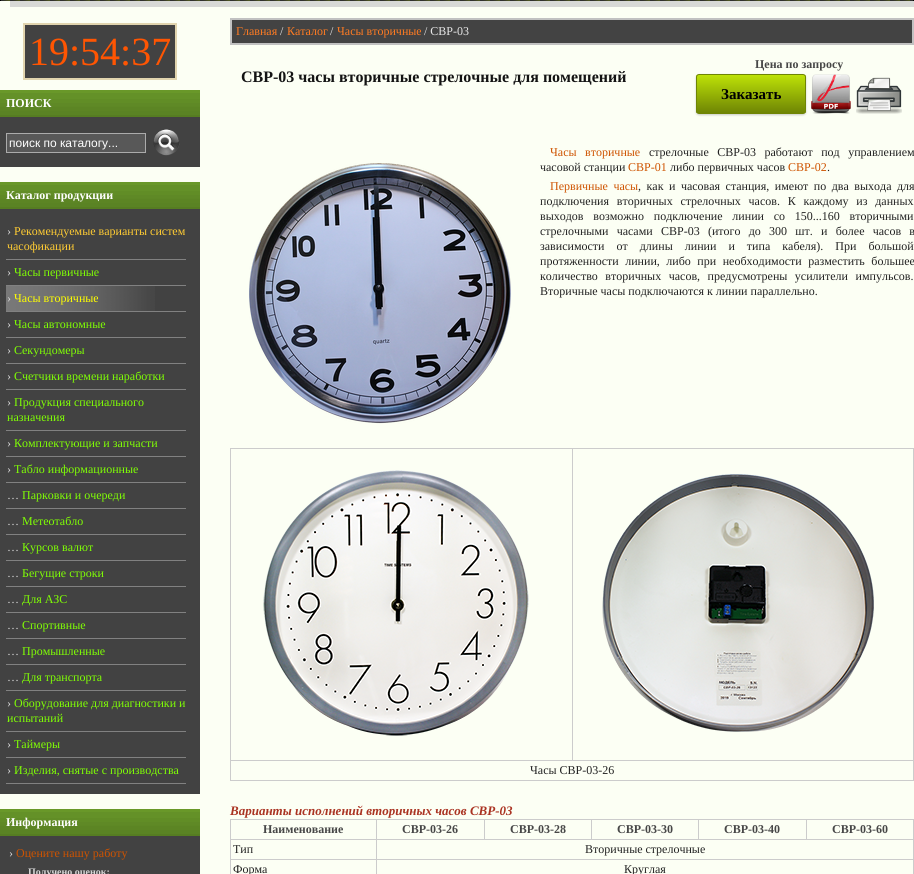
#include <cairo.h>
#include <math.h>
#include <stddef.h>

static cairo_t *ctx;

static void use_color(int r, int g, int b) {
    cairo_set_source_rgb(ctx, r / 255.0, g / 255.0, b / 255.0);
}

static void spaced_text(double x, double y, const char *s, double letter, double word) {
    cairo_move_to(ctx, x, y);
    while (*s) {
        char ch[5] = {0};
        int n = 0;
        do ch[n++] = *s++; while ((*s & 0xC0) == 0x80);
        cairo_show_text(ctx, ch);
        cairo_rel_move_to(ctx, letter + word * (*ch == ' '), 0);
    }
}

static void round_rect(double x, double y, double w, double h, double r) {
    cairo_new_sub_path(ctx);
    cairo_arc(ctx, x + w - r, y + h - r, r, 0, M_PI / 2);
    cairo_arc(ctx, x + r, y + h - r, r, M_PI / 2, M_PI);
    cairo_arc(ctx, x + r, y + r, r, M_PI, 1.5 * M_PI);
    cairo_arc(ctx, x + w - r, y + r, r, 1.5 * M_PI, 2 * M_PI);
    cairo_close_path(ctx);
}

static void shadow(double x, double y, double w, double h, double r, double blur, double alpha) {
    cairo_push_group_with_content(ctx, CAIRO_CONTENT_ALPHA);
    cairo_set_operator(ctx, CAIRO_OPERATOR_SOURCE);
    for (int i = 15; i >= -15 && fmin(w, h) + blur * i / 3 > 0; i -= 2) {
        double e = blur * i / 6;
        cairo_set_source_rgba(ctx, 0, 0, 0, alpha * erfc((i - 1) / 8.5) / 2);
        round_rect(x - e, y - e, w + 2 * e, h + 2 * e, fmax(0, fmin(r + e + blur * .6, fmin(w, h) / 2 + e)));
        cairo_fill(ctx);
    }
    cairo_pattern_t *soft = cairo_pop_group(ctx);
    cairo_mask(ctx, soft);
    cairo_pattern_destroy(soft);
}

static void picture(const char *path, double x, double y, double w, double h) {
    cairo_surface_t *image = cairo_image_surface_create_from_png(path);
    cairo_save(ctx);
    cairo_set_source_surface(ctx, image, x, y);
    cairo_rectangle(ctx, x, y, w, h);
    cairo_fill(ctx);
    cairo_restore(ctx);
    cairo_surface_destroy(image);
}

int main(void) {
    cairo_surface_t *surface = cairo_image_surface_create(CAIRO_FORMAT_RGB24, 914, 874);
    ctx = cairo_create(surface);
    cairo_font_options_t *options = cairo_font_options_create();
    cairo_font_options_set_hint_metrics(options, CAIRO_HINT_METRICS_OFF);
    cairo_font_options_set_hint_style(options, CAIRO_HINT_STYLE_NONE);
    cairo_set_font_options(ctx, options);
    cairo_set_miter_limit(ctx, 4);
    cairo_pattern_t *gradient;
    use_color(252, 255, 244);
    cairo_paint(ctx);
    picture("img1.png", 1, 0, 912, 1);
    use_color(0, 0, 0);
    cairo_rectangle(ctx, 913, 0, 1, 1);
    cairo_fill(ctx);
    cairo_rectangle(ctx, 0, 0, 1, 1);
    cairo_fill(ctx);
    use_color(216, 217, 214);
    cairo_rectangle(ctx, 10, 1, 904, 6);
    cairo_fill(ctx);
    use_color(66, 66, 66);
    cairo_rectangle(ctx, 24, 24, 152, 55);
    cairo_fill_preserve(ctx);
    use_color(225, 212, 174);
    cairo_stroke(ctx);
    cairo_select_font_face(ctx, "Liberation Serif", CAIRO_FONT_SLANT_NORMAL, CAIRO_FONT_WEIGHT_NORMAL);
    cairo_set_font_size(ctx, 40);
    use_color(255, 85, 2);
    cairo_move_to(ctx, 29, 65);
    cairo_show_text(ctx, "19:54:37");
    picture("img2.png", 0, 90, 200, 27);
    cairo_select_font_face(ctx, "Liberation Serif", CAIRO_FONT_SLANT_NORMAL, CAIRO_FONT_WEIGHT_BOLD);
    cairo_set_font_size(ctx, 12);
    use_color(255, 255, 255);
    cairo_move_to(ctx, 6, 107);
    cairo_show_text(ctx, "ПОИСК");
    use_color(66, 66, 66);
    cairo_rectangle(ctx, 0, 117, 200, 50);
    cairo_fill(ctx);
    use_color(88, 88, 88);
    cairo_rectangle(ctx, 6.5, 133.5, 139, 19);
    cairo_fill_preserve(ctx);
    use_color(171, 171, 171);
    cairo_set_line_width(ctx, 1);
    cairo_stroke(ctx);
    cairo_select_font_face(ctx, "Liberation Sans", CAIRO_FONT_SLANT_NORMAL, CAIRO_FONT_WEIGHT_NORMAL);
    use_color(255, 255, 255);
    cairo_move_to(ctx, 9, 147);
    cairo_show_text(ctx, "поиск по каталогу...");
    picture("img3.png", 153, 129, 27, 27);
    picture("img2.png", 0, 182, 200, 27);
    cairo_select_font_face(ctx, "Liberation Serif", CAIRO_FONT_SLANT_NORMAL, CAIRO_FONT_WEIGHT_BOLD);
    cairo_move_to(ctx, 6, 199);
    cairo_show_text(ctx, "Каталог продукции");
    use_color(66, 66, 66);
    cairo_rectangle(ctx, 0, 209, 200, 585);
    cairo_fill(ctx);
    use_color(129, 129, 129);
    cairo_rectangle(ctx, 6, 259, 180, 1);
    cairo_fill(ctx);
    cairo_select_font_face(ctx, "Liberation Serif", CAIRO_FONT_SLANT_NORMAL, CAIRO_FONT_WEIGHT_NORMAL);
    use_color(215, 215, 215);
    cairo_move_to(ctx, 7, 235);
    cairo_show_text(ctx, "›");
    use_color(255, 204, 51);
    cairo_move_to(ctx, 14, 235);
    cairo_show_text(ctx, "Рекомендуемые варианты систем");
    cairo_move_to(ctx, 7, 250);
    cairo_show_text(ctx, "часофикации");
    use_color(129, 129, 129);
    cairo_rectangle(ctx, 6, 285, 180, 1);
    cairo_fill(ctx);
    use_color(215, 215, 215);
    cairo_move_to(ctx, 7, 276);
    cairo_show_text(ctx, "›");
    use_color(128, 255, 4);
    cairo_move_to(ctx, 14, 276);
    cairo_show_text(ctx, "Часы первичные");
    picture("img4.png", 6, 286, 149, 25);
    use_color(129, 129, 129);
    cairo_rectangle(ctx, 6, 311, 180, 1);
    cairo_fill(ctx);
    use_color(215, 215, 215);
    cairo_move_to(ctx, 7, 302);
    cairo_show_text(ctx, "›");
    use_color(255, 255, 0);
    cairo_move_to(ctx, 14, 302);
    cairo_show_text(ctx, "Часы вторичные");
    use_color(129, 129, 129);
    cairo_rectangle(ctx, 6, 337, 180, 1);
    cairo_fill(ctx);
    use_color(215, 215, 215);
    cairo_move_to(ctx, 7, 328);
    cairo_show_text(ctx, "›");
    use_color(128, 255, 4);
    cairo_move_to(ctx, 14, 328);
    cairo_show_text(ctx, "Часы автономные");
    use_color(129, 129, 129);
    cairo_rectangle(ctx, 6, 363, 180, 1);
    cairo_fill(ctx);
    use_color(215, 215, 215);
    cairo_move_to(ctx, 7, 354);
    cairo_show_text(ctx, "›");
    use_color(128, 255, 4);
    cairo_move_to(ctx, 14, 354);
    cairo_show_text(ctx, "Секундомеры");
    use_color(129, 129, 129);
    cairo_rectangle(ctx, 6, 389, 180, 1);
    cairo_fill(ctx);
    use_color(215, 215, 215);
    cairo_move_to(ctx, 7, 380);
    cairo_show_text(ctx, "›");
    use_color(128, 255, 4);
    cairo_move_to(ctx, 14, 380);
    cairo_show_text(ctx, "Счетчики времени наработки");
    use_color(129, 129, 129);
    cairo_rectangle(ctx, 6, 430, 180, 1);
    cairo_fill(ctx);
    use_color(215, 215, 215);
    cairo_move_to(ctx, 7, 406);
    cairo_show_text(ctx, "›");
    use_color(128, 255, 4);
    cairo_move_to(ctx, 14, 406);
    cairo_show_text(ctx, "Продукция специального");
    cairo_move_to(ctx, 7, 421);
    cairo_show_text(ctx, "назначения");
    use_color(129, 129, 129);
    cairo_rectangle(ctx, 6, 456, 180, 1);
    cairo_fill(ctx);
    use_color(215, 215, 215);
    cairo_move_to(ctx, 7, 447);
    cairo_show_text(ctx, "›");
    use_color(128, 255, 4);
    cairo_move_to(ctx, 14, 447);
    cairo_show_text(ctx, "Комплектующие и запчасти");
    use_color(129, 129, 129);
    cairo_rectangle(ctx, 6, 482, 180, 1);
    cairo_fill(ctx);
    use_color(215, 215, 215);
    cairo_move_to(ctx, 7, 473);
    cairo_show_text(ctx, "›");
    use_color(128, 255, 4);
    cairo_move_to(ctx, 14, 473);
    cairo_show_text(ctx, "Табло информационные");
    use_color(129, 129, 129);
    cairo_rectangle(ctx, 6, 508, 180, 1);
    cairo_fill(ctx);
    use_color(215, 215, 215);
    cairo_move_to(ctx, 7, 499);
    cairo_show_text(ctx, "…");
    use_color(128, 255, 4);
    cairo_move_to(ctx, 22, 499);
    cairo_show_text(ctx, "Парковки и очереди");
    use_color(129, 129, 129);
    cairo_rectangle(ctx, 6, 534, 180, 1);
    cairo_fill(ctx);
    use_color(215, 215, 215);
    cairo_move_to(ctx, 7, 525);
    cairo_show_text(ctx, "…");
    use_color(128, 255, 4);
    cairo_move_to(ctx, 22, 525);
    cairo_show_text(ctx, "Метеотабло");
    use_color(129, 129, 129);
    cairo_rectangle(ctx, 6, 560, 180, 1);
    cairo_fill(ctx);
    use_color(215, 215, 215);
    cairo_move_to(ctx, 7, 551);
    cairo_show_text(ctx, "…");
    use_color(128, 255, 4);
    cairo_move_to(ctx, 22, 551);
    cairo_show_text(ctx, "Курсов валют");
    use_color(129, 129, 129);
    cairo_rectangle(ctx, 6, 586, 180, 1);
    cairo_fill(ctx);
    use_color(215, 215, 215);
    cairo_move_to(ctx, 7, 577);
    cairo_show_text(ctx, "…");
    use_color(128, 255, 4);
    cairo_move_to(ctx, 22, 577);
    cairo_show_text(ctx, "Бегущие строки");
    use_color(129, 129, 129);
    cairo_rectangle(ctx, 6, 612, 180, 1);
    cairo_fill(ctx);
    use_color(215, 215, 215);
    cairo_move_to(ctx, 7, 603);
    cairo_show_text(ctx, "…");
    use_color(128, 255, 4);
    cairo_move_to(ctx, 22, 603);
    cairo_show_text(ctx, "Для АЗС");
    use_color(129, 129, 129);
    cairo_rectangle(ctx, 6, 638, 180, 1);
    cairo_fill(ctx);
    use_color(215, 215, 215);
    cairo_move_to(ctx, 7, 629);
    cairo_show_text(ctx, "…");
    use_color(128, 255, 4);
    cairo_move_to(ctx, 22, 629);
    cairo_show_text(ctx, "Спортивные");
    use_color(129, 129, 129);
    cairo_rectangle(ctx, 6, 664, 180, 1);
    cairo_fill(ctx);
    use_color(215, 215, 215);
    cairo_move_to(ctx, 7, 655);
    cairo_show_text(ctx, "…");
    use_color(128, 255, 4);
    cairo_move_to(ctx, 22, 655);
    cairo_show_text(ctx, "Промышленные");
    use_color(129, 129, 129);
    cairo_rectangle(ctx, 6, 690, 180, 1);
    cairo_fill(ctx);
    use_color(215, 215, 215);
    cairo_move_to(ctx, 7, 681);
    cairo_show_text(ctx, "…");
    use_color(128, 255, 4);
    cairo_move_to(ctx, 22, 681);
    cairo_show_text(ctx, "Для транспорта");
    use_color(129, 129, 129);
    cairo_rectangle(ctx, 6, 731, 180, 1);
    cairo_fill(ctx);
    use_color(215, 215, 215);
    cairo_move_to(ctx, 7, 707);
    cairo_show_text(ctx, "›");
    use_color(128, 255, 4);
    cairo_move_to(ctx, 14, 707);
    cairo_show_text(ctx, "Оборудование для диагностики и");
    cairo_move_to(ctx, 7, 722);
    cairo_show_text(ctx, "испытаний");
    use_color(129, 129, 129);
    cairo_rectangle(ctx, 6, 757, 180, 1);
    cairo_fill(ctx);
    use_color(215, 215, 215);
    cairo_move_to(ctx, 7, 748);
    cairo_show_text(ctx, "›");
    use_color(128, 255, 4);
    cairo_move_to(ctx, 14, 748);
    cairo_show_text(ctx, "Таймеры");
    use_color(129, 129, 129);
    cairo_rectangle(ctx, 6, 783, 180, 1);
    cairo_fill(ctx);
    use_color(215, 215, 215);
    cairo_move_to(ctx, 7, 774);
    cairo_show_text(ctx, "›");
    use_color(128, 255, 4);
    cairo_move_to(ctx, 14, 774);
    cairo_show_text(ctx, "Изделия, снятые с производства");
    picture("img2.png", 0, 809, 200, 27);
    cairo_select_font_face(ctx, "Liberation Serif", CAIRO_FONT_SLANT_NORMAL, CAIRO_FONT_WEIGHT_BOLD);
    use_color(255, 255, 255);
    cairo_move_to(ctx, 6, 826);
    cairo_show_text(ctx, "Информация");
    use_color(66, 66, 66);
    cairo_rectangle(ctx, 0, 836, 200, 38);
    cairo_fill(ctx);
    cairo_select_font_face(ctx, "Liberation Serif", CAIRO_FONT_SLANT_NORMAL, CAIRO_FONT_WEIGHT_NORMAL);
    use_color(215, 215, 215);
    cairo_move_to(ctx, 9, 857);
    cairo_show_text(ctx, "›");
    use_color(206, 83, 0);
    cairo_move_to(ctx, 16, 857);
    cairo_show_text(ctx, "Оцените нашу работу");
    cairo_select_font_face(ctx, "Liberation Serif", CAIRO_FONT_SLANT_NORMAL, CAIRO_FONT_WEIGHT_BOLD);
    cairo_set_font_size(ctx, 10);
    use_color(215, 215, 215);
    cairo_move_to(ctx, 28, 875);
    cairo_show_text(ctx, "Получено оценок:");
    use_color(67, 67, 67);
    cairo_rectangle(ctx, 231, 19, 682, 25);
    cairo_fill_preserve(ctx);
    use_color(193, 193, 193);
    cairo_set_line_width(ctx, 2);
    cairo_stroke(ctx);
    cairo_select_font_face(ctx, "Liberation Serif", CAIRO_FONT_SLANT_NORMAL, CAIRO_FONT_WEIGHT_NORMAL);
    cairo_set_font_size(ctx, 12);
    use_color(255, 123, 34);
    cairo_move_to(ctx, 236, 35);
    cairo_show_text(ctx, "Главная");
    use_color(231, 231, 231);
    cairo_move_to(ctx, 280, 35);
    cairo_show_text(ctx, "/");
    use_color(255, 123, 34);
    cairo_move_to(ctx, 287, 35);
    cairo_show_text(ctx, "Каталог");
    use_color(231, 231, 231);
    cairo_move_to(ctx, 330, 35);
    cairo_show_text(ctx, "/");
    use_color(255, 123, 34);
    cairo_move_to(ctx, 337, 35);
    cairo_show_text(ctx, "Часы вторичные");
    use_color(231, 231, 231);
    cairo_move_to(ctx, 424, 35);
    cairo_show_text(ctx, "/ СВР-03");
    cairo_select_font_face(ctx, "Liberation Serif", CAIRO_FONT_SLANT_NORMAL, CAIRO_FONT_WEIGHT_BOLD);
    cairo_set_font_size(ctx, 16);
    use_color(19, 19, 19);
    cairo_move_to(ctx, 241, 82);
    cairo_show_text(ctx, "СВР-03 часы вторичные стрелочные для помещений");
    cairo_set_font_size(ctx, 12);
    use_color(71, 71, 71);
    cairo_move_to(ctx, 755, 68);
    cairo_show_text(ctx, "Цена по запросу");
    use_color(0, 0, 0);
    shadow(696, 75, 110, 40, 3, 1, 0.2);
    cairo_save(ctx);
    round_rect(696, 74, 110, 40, 3);
    cairo_clip(ctx);
    gradient = cairo_pattern_create_linear(697, 75, 697, 113);
    cairo_pattern_add_color_stop_rgba(gradient, 0, 0.741, 0.886, 0.027, 1);
    cairo_pattern_add_color_stop_rgba(gradient, 1, 0.435, 0.522, 0.016, 1);
    cairo_set_source(ctx, gradient);
    cairo_pattern_destroy(gradient);
    cairo_rectangle(ctx, 696, 75, 110, 38);
    cairo_fill(ctx);
    cairo_restore(ctx);
    round_rect(696.5, 74.5, 109, 39, 2.5);
    use_color(111, 133, 4);
    cairo_set_line_width(ctx, 1);
    cairo_stroke(ctx);
    cairo_set_font_size(ctx, 15);
    use_color(0, 0, 0);
    cairo_move_to(ctx, 721, 99);
    cairo_show_text(ctx, "Заказать");
    picture("img5.png", 811, 74, 40, 40);
    picture("img6.png", 856, 77, 46, 37);
    picture("img7.png", 249, 163, 262, 261);
    cairo_select_font_face(ctx, "Liberation Serif", CAIRO_FONT_SLANT_NORMAL, CAIRO_FONT_WEIGHT_NORMAL);
    cairo_set_font_size(ctx, 12);
    use_color(206, 83, 0);
    spaced_text(550, 156, "Часы вторичные", 0, 5.5);
    use_color(34, 34, 34);
    spaced_text(649, 156, "стрелочные СВР-03 работают под управлением", 0, 5.5);
    cairo_move_to(ctx, 540, 171);
    cairo_show_text(ctx, "часовой станции");
    use_color(206, 83, 0);
    cairo_move_to(ctx, 628, 171);
    cairo_show_text(ctx, "СВР-01");
    use_color(34, 34, 34);
    cairo_move_to(ctx, 670, 171);
    cairo_show_text(ctx, "либо первичных часов");
    use_color(206, 83, 0);
    cairo_move_to(ctx, 788, 171);
    cairo_show_text(ctx, "СВР-02");
    use_color(34, 34, 34);
    cairo_move_to(ctx, 827, 171);
    cairo_show_text(ctx, ".");
    use_color(206, 83, 0);
    spaced_text(550, 190, "Первичные часы", 0, 2.5);
    use_color(34, 34, 34);
    spaced_text(638, 190, ", как и часовая станция, имеют по два выхода для", 0, 2.5);
    spaced_text(540, 205, "подключения вторичных стрелочных часов. К каждому из данных", 0, 4.75);
    spaced_text(540, 220, "выходов возможно подключение линии со 150...160 вторичными", 0, 6.75);
    spaced_text(540, 235, "стрелочными часами СВР-03 (итого до 300 шт. и более часов в", 0, 5.25);
    spaced_text(540, 250, "зависимости от длины линии и типа кабеля). При большой", 0, 9);
    spaced_text(540, 265, "протяженности линии, либо при необходимости разместить большее", 0, 3.5);
    spaced_text(540, 280, "количество вторичных часов, предусмотрены усилители импульсов.", 0, 4.5);
    cairo_move_to(ctx, 540, 295);
    cairo_show_text(ctx, "Вторичные часы подключаются к линии параллельно.");
    use_color(204, 204, 204);
    cairo_rectangle(ctx, 230, 448, 684, 1);
    cairo_fill(ctx);
    cairo_rectangle(ctx, 230, 448, 1, 333);
    cairo_fill(ctx);
    picture("img8.png", 263, 470, 266, 266);
    cairo_rectangle(ctx, 230, 760, 684, 1);
    cairo_fill(ctx);
    cairo_rectangle(ctx, 572, 448, 1, 313);
    cairo_fill(ctx);
    picture("img9.png", 602, 474, 272, 258);
    cairo_rectangle(ctx, 913, 448, 1, 333);
    cairo_fill(ctx);
    cairo_rectangle(ctx, 230, 780, 684, 1);
    cairo_fill(ctx);
    use_color(34, 34, 34);
    cairo_move_to(ctx, 530, 774);
    cairo_show_text(ctx, "Часы СВР-03-26");
    cairo_select_font_face(ctx, "Liberation Serif", CAIRO_FONT_SLANT_ITALIC, CAIRO_FONT_WEIGHT_BOLD);
    cairo_set_font_size(ctx, 13);
    use_color(170, 51, 34);
    cairo_move_to(ctx, 230, 815);
    cairo_show_text(ctx, "Варианты исполнений вторичных часов СВР-03");
    use_color(204, 204, 204);
    cairo_rectangle(ctx, 230, 819, 684, 1);
    cairo_fill(ctx);
    cairo_rectangle(ctx, 230, 819, 1, 55);
    cairo_fill(ctx);
    cairo_select_font_face(ctx, "Liberation Serif", CAIRO_FONT_SLANT_NORMAL, CAIRO_FONT_WEIGHT_BOLD);
    cairo_set_font_size(ctx, 12);
    use_color(71, 71, 71);
    cairo_move_to(ctx, 263, 833);
    cairo_show_text(ctx, "Наименование");
    use_color(204, 204, 204);
    cairo_rectangle(ctx, 376, 839, 538, 1);
    cairo_fill(ctx);
    cairo_rectangle(ctx, 376, 859, 538, 1);
    cairo_fill(ctx);
    cairo_rectangle(ctx, 376, 859, 1, 15);
    cairo_fill(ctx);
    cairo_rectangle(ctx, 230, 859, 147, 1);
    cairo_fill(ctx);
    cairo_rectangle(ctx, 376, 839, 1, 21);
    cairo_fill(ctx);
    cairo_rectangle(ctx, 230, 839, 147, 1);
    cairo_fill(ctx);
    cairo_rectangle(ctx, 376, 819, 1, 21);
    cairo_fill(ctx);
    use_color(71, 71, 71);
    cairo_move_to(ctx, 402, 833);
    cairo_show_text(ctx, "СВР-03-26");
    use_color(204, 204, 204);
    cairo_rectangle(ctx, 484, 819, 1, 21);
    cairo_fill(ctx);
    use_color(71, 71, 71);
    cairo_move_to(ctx, 510, 833);
    cairo_show_text(ctx, "СВР-03-28");
    use_color(204, 204, 204);
    cairo_rectangle(ctx, 591, 819, 1, 21);
    cairo_fill(ctx);
    use_color(71, 71, 71);
    cairo_move_to(ctx, 617, 833);
    cairo_show_text(ctx, "СВР-03-30");
    use_color(204, 204, 204);
    cairo_rectangle(ctx, 698, 819, 1, 21);
    cairo_fill(ctx);
    use_color(71, 71, 71);
    cairo_move_to(ctx, 724, 833);
    cairo_show_text(ctx, "СВР-03-40");
    use_color(204, 204, 204);
    cairo_rectangle(ctx, 806, 819, 1, 21);
    cairo_fill(ctx);
    use_color(71, 71, 71);
    cairo_move_to(ctx, 832, 833);
    cairo_show_text(ctx, "СВР-03-60");
    cairo_select_font_face(ctx, "Liberation Serif", CAIRO_FONT_SLANT_NORMAL, CAIRO_FONT_WEIGHT_NORMAL);
    use_color(34, 34, 34);
    cairo_move_to(ctx, 233, 853);
    cairo_show_text(ctx, "Тип");
    use_color(204, 204, 204);
    cairo_rectangle(ctx, 913, 859, 1, 15);
    cairo_fill(ctx);
    cairo_rectangle(ctx, 913, 819, 1, 41);
    cairo_fill(ctx);
    use_color(34, 34, 34);
    cairo_move_to(ctx, 585, 853);
    cairo_show_text(ctx, "Вторичные стрелочные");
    cairo_move_to(ctx, 233, 873);
    cairo_show_text(ctx, "Форма");
    cairo_move_to(ctx, 624, 873);
    cairo_show_text(ctx, "Круглая");
    cairo_surface_write_to_png(surface, "result.png");
    cairo_font_options_destroy(options);
    cairo_destroy(ctx);
    cairo_surface_destroy(surface);
    return 0;
}
